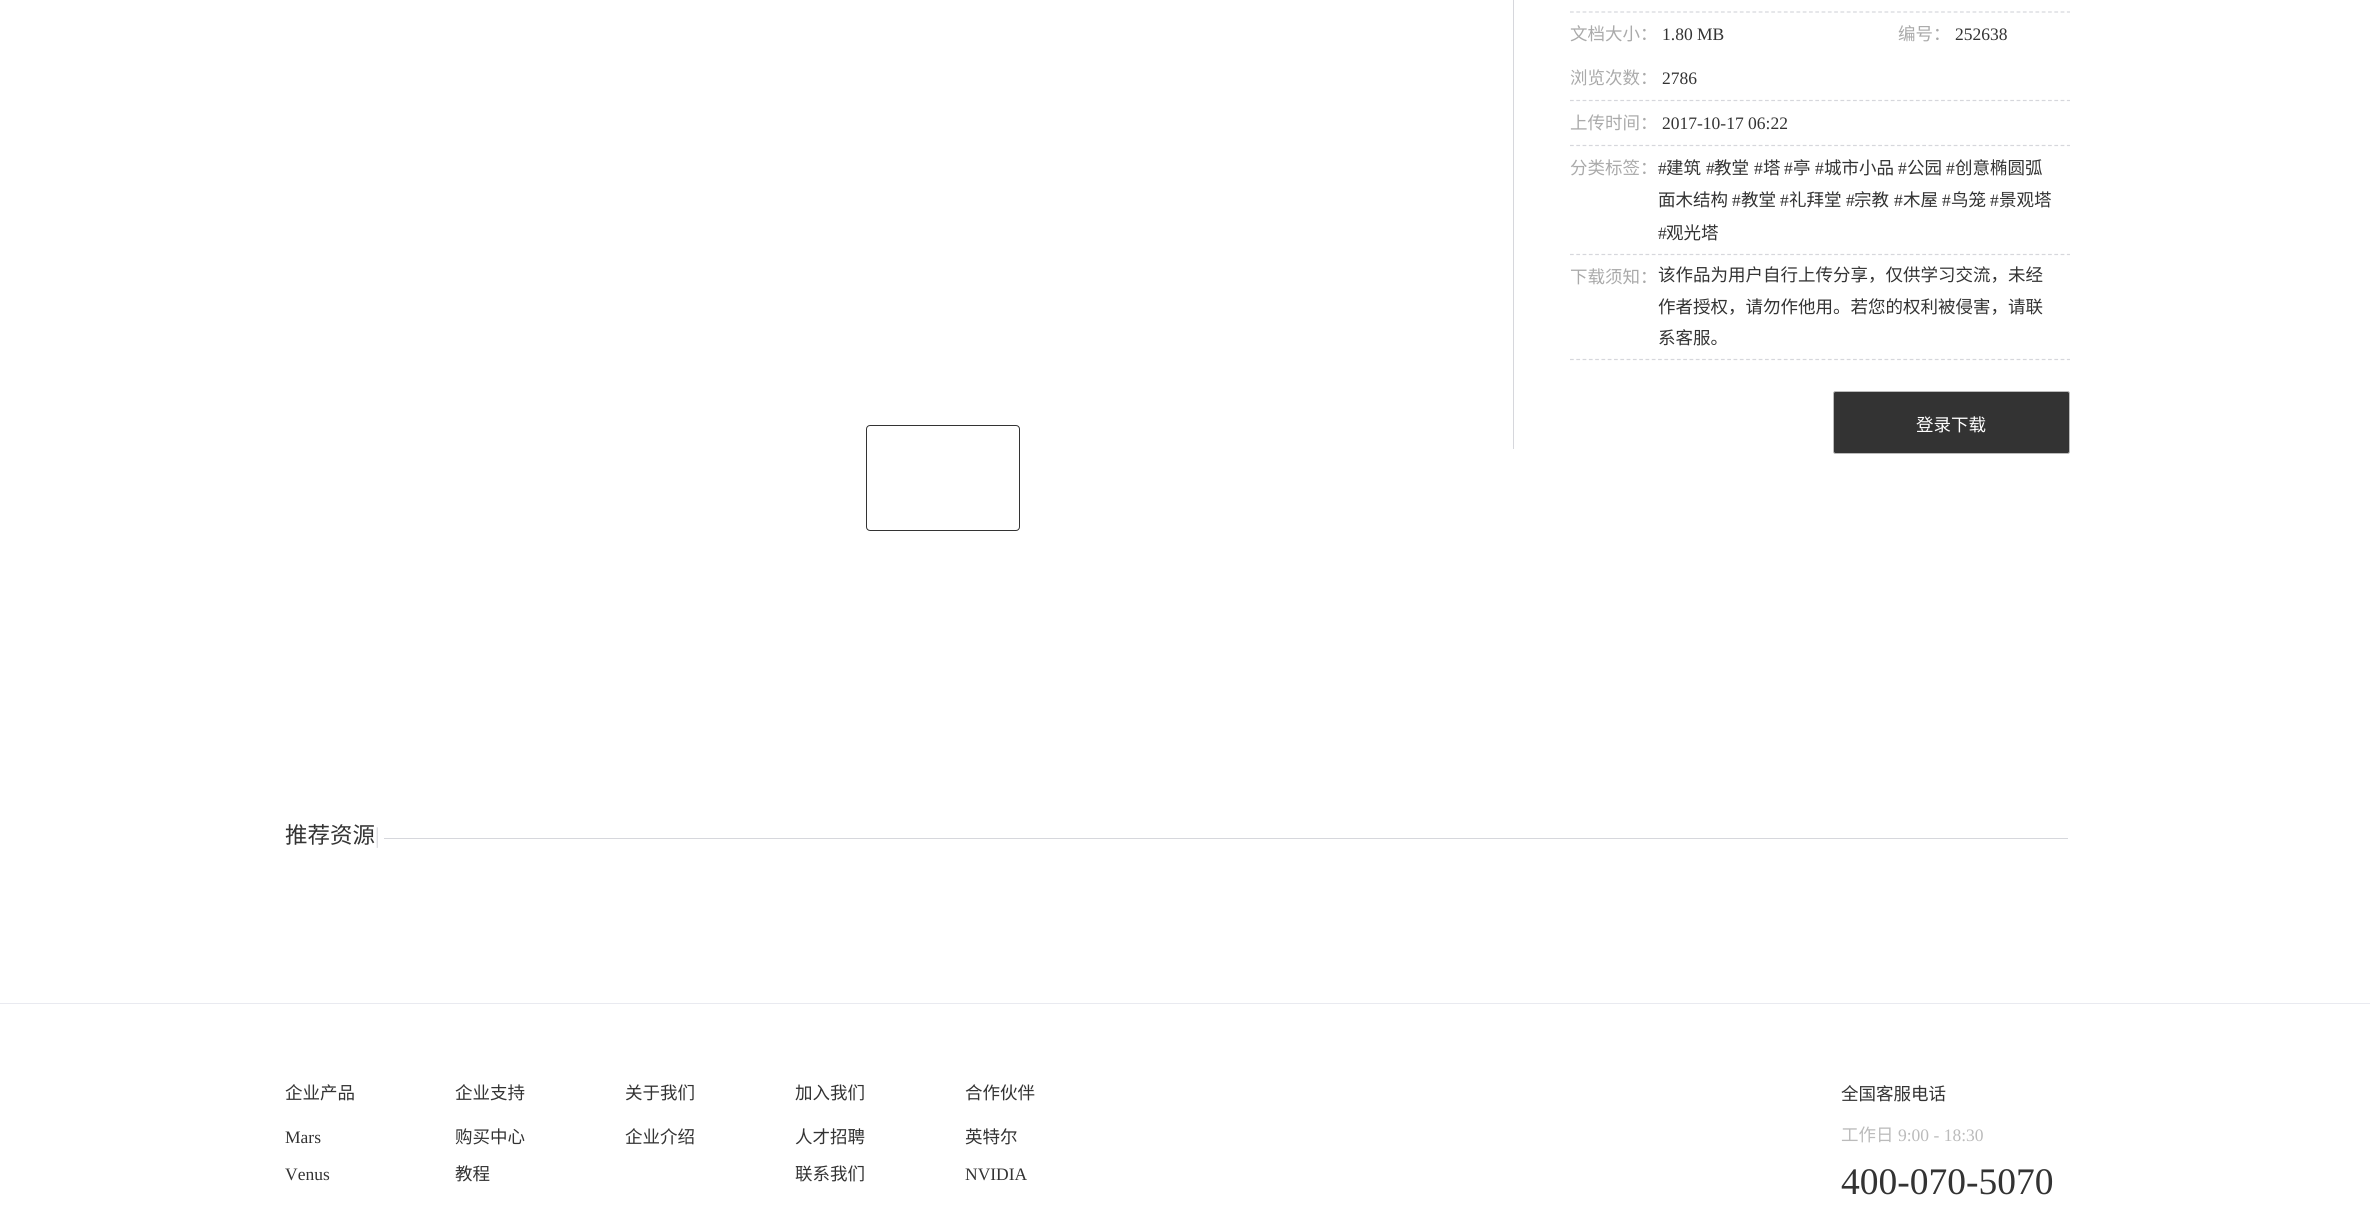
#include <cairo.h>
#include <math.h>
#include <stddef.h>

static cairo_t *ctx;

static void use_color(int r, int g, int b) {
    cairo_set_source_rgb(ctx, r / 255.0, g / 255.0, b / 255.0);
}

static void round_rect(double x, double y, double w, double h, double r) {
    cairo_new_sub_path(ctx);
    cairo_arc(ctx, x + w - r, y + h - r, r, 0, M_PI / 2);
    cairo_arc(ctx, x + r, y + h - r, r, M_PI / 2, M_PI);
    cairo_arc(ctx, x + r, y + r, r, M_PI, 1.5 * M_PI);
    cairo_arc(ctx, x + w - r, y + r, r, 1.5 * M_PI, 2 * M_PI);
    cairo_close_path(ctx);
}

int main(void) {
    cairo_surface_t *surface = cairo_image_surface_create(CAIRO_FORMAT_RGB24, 2370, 1208);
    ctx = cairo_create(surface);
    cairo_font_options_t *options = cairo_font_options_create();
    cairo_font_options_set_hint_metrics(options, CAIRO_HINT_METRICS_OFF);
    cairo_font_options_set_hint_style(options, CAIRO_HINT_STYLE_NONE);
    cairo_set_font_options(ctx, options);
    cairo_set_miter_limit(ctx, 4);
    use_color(255, 255, 255);
    cairo_paint(ctx);
    use_color(214, 215, 220);
    cairo_rectangle(ctx, 1513, 0, 1, 449);
    cairo_fill(ctx);
    cairo_new_path(ctx);
    cairo_move_to(ctx, 1570, 12);
    cairo_line_to(ctx, 2070, 12);
    cairo_set_line_width(ctx, 1.2);
    cairo_set_dash(ctx, (double[]){3.75, 2.54}, 2, 0);
    cairo_stroke(ctx);
    cairo_new_path(ctx);
    cairo_move_to(ctx, 1570, 100.5);
    cairo_line_to(ctx, 2070, 100.5);
    cairo_stroke(ctx);
    cairo_select_font_face(ctx, "Noto Sans CJK SC", CAIRO_FONT_SLANT_NORMAL, CAIRO_FONT_WEIGHT_NORMAL);
    cairo_set_font_size(ctx, 17.5);
    use_color(170, 170, 170);
    cairo_move_to(ctx, 1570, 40);
    cairo_show_text(ctx, "文档大小：");
    cairo_select_font_face(ctx, "Liberation Serif", CAIRO_FONT_SLANT_NORMAL, CAIRO_FONT_WEIGHT_NORMAL);
    use_color(51, 51, 51);
    cairo_move_to(ctx, 1662, 40);
    cairo_show_text(ctx, "1.80 MB");
    cairo_select_font_face(ctx, "Noto Sans CJK SC", CAIRO_FONT_SLANT_NORMAL, CAIRO_FONT_WEIGHT_NORMAL);
    use_color(170, 170, 170);
    cairo_move_to(ctx, 1898, 40);
    cairo_show_text(ctx, "编号：");
    cairo_select_font_face(ctx, "Liberation Serif", CAIRO_FONT_SLANT_NORMAL, CAIRO_FONT_WEIGHT_NORMAL);
    use_color(51, 51, 51);
    cairo_move_to(ctx, 1955, 40);
    cairo_show_text(ctx, "252638");
    cairo_select_font_face(ctx, "Noto Sans CJK SC", CAIRO_FONT_SLANT_NORMAL, CAIRO_FONT_WEIGHT_NORMAL);
    use_color(170, 170, 170);
    cairo_move_to(ctx, 1570, 84);
    cairo_show_text(ctx, "浏览次数：");
    cairo_select_font_face(ctx, "Liberation Serif", CAIRO_FONT_SLANT_NORMAL, CAIRO_FONT_WEIGHT_NORMAL);
    use_color(51, 51, 51);
    cairo_move_to(ctx, 1662, 84);
    cairo_show_text(ctx, "2786");
    cairo_new_path(ctx);
    cairo_move_to(ctx, 1570, 145.5);
    cairo_line_to(ctx, 2070, 145.5);
    use_color(214, 215, 220);
    cairo_stroke(ctx);
    cairo_select_font_face(ctx, "Noto Sans CJK SC", CAIRO_FONT_SLANT_NORMAL, CAIRO_FONT_WEIGHT_NORMAL);
    use_color(170, 170, 170);
    cairo_move_to(ctx, 1570, 129);
    cairo_show_text(ctx, "上传时间：");
    cairo_select_font_face(ctx, "Liberation Serif", CAIRO_FONT_SLANT_NORMAL, CAIRO_FONT_WEIGHT_NORMAL);
    use_color(51, 51, 51);
    cairo_move_to(ctx, 1662, 129);
    cairo_show_text(ctx, "2017-10-17 06:22");
    cairo_new_path(ctx);
    cairo_move_to(ctx, 1570, 254.5);
    cairo_line_to(ctx, 2070, 254.5);
    use_color(214, 215, 220);
    cairo_stroke(ctx);
    cairo_select_font_face(ctx, "Noto Sans CJK SC", CAIRO_FONT_SLANT_NORMAL, CAIRO_FONT_WEIGHT_NORMAL);
    use_color(170, 170, 170);
    cairo_move_to(ctx, 1570, 174);
    cairo_show_text(ctx, "分类标签：");
    cairo_select_font_face(ctx, "Liberation Serif", CAIRO_FONT_SLANT_NORMAL, CAIRO_FONT_WEIGHT_NORMAL);
    use_color(51, 51, 51);
    cairo_move_to(ctx, 1658, 174);
    cairo_show_text(ctx, "#");
    cairo_select_font_face(ctx, "Noto Sans CJK SC", CAIRO_FONT_SLANT_NORMAL, CAIRO_FONT_WEIGHT_NORMAL);
    cairo_move_to(ctx, 1666, 174);
    cairo_show_text(ctx, "建筑");
    cairo_select_font_face(ctx, "Liberation Serif", CAIRO_FONT_SLANT_NORMAL, CAIRO_FONT_WEIGHT_NORMAL);
    cairo_move_to(ctx, 1706, 174);
    cairo_show_text(ctx, "#");
    cairo_select_font_face(ctx, "Noto Sans CJK SC", CAIRO_FONT_SLANT_NORMAL, CAIRO_FONT_WEIGHT_NORMAL);
    cairo_move_to(ctx, 1714, 174);
    cairo_show_text(ctx, "教堂");
    cairo_select_font_face(ctx, "Liberation Serif", CAIRO_FONT_SLANT_NORMAL, CAIRO_FONT_WEIGHT_NORMAL);
    cairo_move_to(ctx, 1754, 174);
    cairo_show_text(ctx, "#");
    cairo_select_font_face(ctx, "Noto Sans CJK SC", CAIRO_FONT_SLANT_NORMAL, CAIRO_FONT_WEIGHT_NORMAL);
    cairo_move_to(ctx, 1763, 174);
    cairo_show_text(ctx, "塔");
    cairo_select_font_face(ctx, "Liberation Serif", CAIRO_FONT_SLANT_NORMAL, CAIRO_FONT_WEIGHT_NORMAL);
    cairo_move_to(ctx, 1784, 174);
    cairo_show_text(ctx, "#");
    cairo_select_font_face(ctx, "Noto Sans CJK SC", CAIRO_FONT_SLANT_NORMAL, CAIRO_FONT_WEIGHT_NORMAL);
    cairo_move_to(ctx, 1793, 174);
    cairo_show_text(ctx, "亭");
    cairo_select_font_face(ctx, "Liberation Serif", CAIRO_FONT_SLANT_NORMAL, CAIRO_FONT_WEIGHT_NORMAL);
    cairo_move_to(ctx, 1815, 174);
    cairo_show_text(ctx, "#");
    cairo_select_font_face(ctx, "Noto Sans CJK SC", CAIRO_FONT_SLANT_NORMAL, CAIRO_FONT_WEIGHT_NORMAL);
    cairo_move_to(ctx, 1824, 174);
    cairo_show_text(ctx, "城市小品");
    cairo_select_font_face(ctx, "Liberation Serif", CAIRO_FONT_SLANT_NORMAL, CAIRO_FONT_WEIGHT_NORMAL);
    cairo_move_to(ctx, 1898, 174);
    cairo_show_text(ctx, "#");
    cairo_select_font_face(ctx, "Noto Sans CJK SC", CAIRO_FONT_SLANT_NORMAL, CAIRO_FONT_WEIGHT_NORMAL);
    cairo_move_to(ctx, 1907, 174);
    cairo_show_text(ctx, "公园");
    cairo_select_font_face(ctx, "Liberation Serif", CAIRO_FONT_SLANT_NORMAL, CAIRO_FONT_WEIGHT_NORMAL);
    cairo_move_to(ctx, 1946, 174);
    cairo_show_text(ctx, "#");
    cairo_select_font_face(ctx, "Noto Sans CJK SC", CAIRO_FONT_SLANT_NORMAL, CAIRO_FONT_WEIGHT_NORMAL);
    cairo_move_to(ctx, 1955, 174);
    cairo_show_text(ctx, "创意椭圆弧");
    cairo_move_to(ctx, 1658, 206);
    cairo_show_text(ctx, "面木结构");
    cairo_select_font_face(ctx, "Liberation Serif", CAIRO_FONT_SLANT_NORMAL, CAIRO_FONT_WEIGHT_NORMAL);
    cairo_move_to(ctx, 1732, 206);
    cairo_show_text(ctx, "#");
    cairo_select_font_face(ctx, "Noto Sans CJK SC", CAIRO_FONT_SLANT_NORMAL, CAIRO_FONT_WEIGHT_NORMAL);
    cairo_move_to(ctx, 1741, 206);
    cairo_show_text(ctx, "教堂");
    cairo_select_font_face(ctx, "Liberation Serif", CAIRO_FONT_SLANT_NORMAL, CAIRO_FONT_WEIGHT_NORMAL);
    cairo_move_to(ctx, 1780, 206);
    cairo_show_text(ctx, "#");
    cairo_select_font_face(ctx, "Noto Sans CJK SC", CAIRO_FONT_SLANT_NORMAL, CAIRO_FONT_WEIGHT_NORMAL);
    cairo_move_to(ctx, 1789, 206);
    cairo_show_text(ctx, "礼拜堂");
    cairo_select_font_face(ctx, "Liberation Serif", CAIRO_FONT_SLANT_NORMAL, CAIRO_FONT_WEIGHT_NORMAL);
    cairo_move_to(ctx, 1846, 206);
    cairo_show_text(ctx, "#");
    cairo_select_font_face(ctx, "Noto Sans CJK SC", CAIRO_FONT_SLANT_NORMAL, CAIRO_FONT_WEIGHT_NORMAL);
    cairo_move_to(ctx, 1854, 206);
    cairo_show_text(ctx, "宗教");
    cairo_select_font_face(ctx, "Liberation Serif", CAIRO_FONT_SLANT_NORMAL, CAIRO_FONT_WEIGHT_NORMAL);
    cairo_move_to(ctx, 1894, 206);
    cairo_show_text(ctx, "#");
    cairo_select_font_face(ctx, "Noto Sans CJK SC", CAIRO_FONT_SLANT_NORMAL, CAIRO_FONT_WEIGHT_NORMAL);
    cairo_move_to(ctx, 1903, 206);
    cairo_show_text(ctx, "木屋");
    cairo_select_font_face(ctx, "Liberation Serif", CAIRO_FONT_SLANT_NORMAL, CAIRO_FONT_WEIGHT_NORMAL);
    cairo_move_to(ctx, 1942, 206);
    cairo_show_text(ctx, "#");
    cairo_select_font_face(ctx, "Noto Sans CJK SC", CAIRO_FONT_SLANT_NORMAL, CAIRO_FONT_WEIGHT_NORMAL);
    cairo_move_to(ctx, 1951, 206);
    cairo_show_text(ctx, "鸟笼");
    cairo_select_font_face(ctx, "Liberation Serif", CAIRO_FONT_SLANT_NORMAL, CAIRO_FONT_WEIGHT_NORMAL);
    cairo_move_to(ctx, 1990, 206);
    cairo_show_text(ctx, "#");
    cairo_select_font_face(ctx, "Noto Sans CJK SC", CAIRO_FONT_SLANT_NORMAL, CAIRO_FONT_WEIGHT_NORMAL);
    cairo_move_to(ctx, 1999, 206);
    cairo_show_text(ctx, "景观塔");
    cairo_select_font_face(ctx, "Liberation Serif", CAIRO_FONT_SLANT_NORMAL, CAIRO_FONT_WEIGHT_NORMAL);
    cairo_move_to(ctx, 1658, 239);
    cairo_show_text(ctx, "#");
    cairo_select_font_face(ctx, "Noto Sans CJK SC", CAIRO_FONT_SLANT_NORMAL, CAIRO_FONT_WEIGHT_NORMAL);
    cairo_move_to(ctx, 1666, 239);
    cairo_show_text(ctx, "观光塔");
    cairo_new_path(ctx);
    cairo_move_to(ctx, 1570, 359.5);
    cairo_line_to(ctx, 2070, 359.5);
    use_color(214, 215, 220);
    cairo_stroke(ctx);
    use_color(170, 170, 170);
    cairo_move_to(ctx, 1570, 283);
    cairo_show_text(ctx, "下载须知：");
    use_color(51, 51, 51);
    cairo_move_to(ctx, 1658, 281);
    cairo_show_text(ctx, "该作品为用户自行上传分享，仅供学习交流，未经");
    cairo_move_to(ctx, 1658, 313);
    cairo_show_text(ctx, "作者授权，请勿作他用。若您的权利被侵害，请联");
    cairo_move_to(ctx, 1658, 344);
    cairo_show_text(ctx, "系客服。");
    round_rect(1833.5, 391.5, 236, 62, 2);
    cairo_fill_preserve(ctx);
    use_color(187, 187, 187);
    cairo_set_line_width(ctx, 1);
    cairo_set_dash(ctx, NULL, 0, 0);
    cairo_stroke(ctx);
    use_color(255, 255, 255);
    cairo_move_to(ctx, 1916, 431);
    cairo_show_text(ctx, "登录下载");
    round_rect(866.5, 425.5, 153, 105, 3.5);
    use_color(51, 51, 51);
    cairo_stroke(ctx);
    cairo_set_font_size(ctx, 22.5);
    cairo_move_to(ctx, 285, 843);
    cairo_show_text(ctx, "推荐资源");
    cairo_select_font_face(ctx, "Liberation Serif", CAIRO_FONT_SLANT_NORMAL, CAIRO_FONT_WEIGHT_NORMAL);
    use_color(214, 215, 220);
    cairo_move_to(ctx, 375, 843);
    cairo_show_text(ctx, "|");
    cairo_rectangle(ctx, 384, 838, 1684, 1);
    cairo_fill(ctx);
    use_color(233, 234, 240);
    cairo_rectangle(ctx, 0, 1003, 2370, 1);
    cairo_fill(ctx);
    cairo_select_font_face(ctx, "Noto Sans CJK SC", CAIRO_FONT_SLANT_NORMAL, CAIRO_FONT_WEIGHT_NORMAL);
    cairo_set_font_size(ctx, 17.5);
    use_color(51, 51, 51);
    cairo_move_to(ctx, 285, 1099);
    cairo_show_text(ctx, "企业产品");
    cairo_select_font_face(ctx, "Liberation Serif", CAIRO_FONT_SLANT_NORMAL, CAIRO_FONT_WEIGHT_NORMAL);
    cairo_move_to(ctx, 285, 1143);
    cairo_show_text(ctx, "Mars");
    cairo_move_to(ctx, 285, 1180);
    cairo_show_text(ctx, "Venus");
    cairo_select_font_face(ctx, "Noto Sans CJK SC", CAIRO_FONT_SLANT_NORMAL, CAIRO_FONT_WEIGHT_NORMAL);
    cairo_move_to(ctx, 455, 1099);
    cairo_show_text(ctx, "企业支持");
    cairo_move_to(ctx, 455, 1143);
    cairo_show_text(ctx, "购买中心");
    cairo_move_to(ctx, 455, 1180);
    cairo_show_text(ctx, "教程");
    cairo_move_to(ctx, 625, 1099);
    cairo_show_text(ctx, "关于我们");
    cairo_move_to(ctx, 625, 1143);
    cairo_show_text(ctx, "企业介绍");
    cairo_move_to(ctx, 795, 1099);
    cairo_show_text(ctx, "加入我们");
    cairo_move_to(ctx, 795, 1143);
    cairo_show_text(ctx, "人才招聘");
    cairo_move_to(ctx, 795, 1180);
    cairo_show_text(ctx, "联系我们");
    cairo_move_to(ctx, 965, 1099);
    cairo_show_text(ctx, "合作伙伴");
    cairo_move_to(ctx, 965, 1143);
    cairo_show_text(ctx, "英特尔");
    cairo_select_font_face(ctx, "Liberation Serif", CAIRO_FONT_SLANT_NORMAL, CAIRO_FONT_WEIGHT_NORMAL);
    cairo_move_to(ctx, 965, 1180);
    cairo_show_text(ctx, "NVIDIA");
    cairo_select_font_face(ctx, "Noto Sans CJK SC", CAIRO_FONT_SLANT_NORMAL, CAIRO_FONT_WEIGHT_NORMAL);
    cairo_move_to(ctx, 1841, 1100);
    cairo_show_text(ctx, "全国客服电话");
    use_color(187, 187, 187);
    cairo_move_to(ctx, 1841, 1141);
    cairo_show_text(ctx, "工作日");
    cairo_select_font_face(ctx, "Liberation Serif", CAIRO_FONT_SLANT_NORMAL, CAIRO_FONT_WEIGHT_NORMAL);
    cairo_move_to(ctx, 1898, 1141);
    cairo_show_text(ctx, "9:00 - 18:30");
    cairo_set_font_size(ctx, 37.5);
    use_color(51, 51, 51);
    cairo_move_to(ctx, 1841, 1194);
    cairo_show_text(ctx, "400-070-5070");
    cairo_surface_write_to_png(surface, "result.png");
    cairo_font_options_destroy(options);
    cairo_destroy(ctx);
    cairo_surface_destroy(surface);
    return 0;
}
